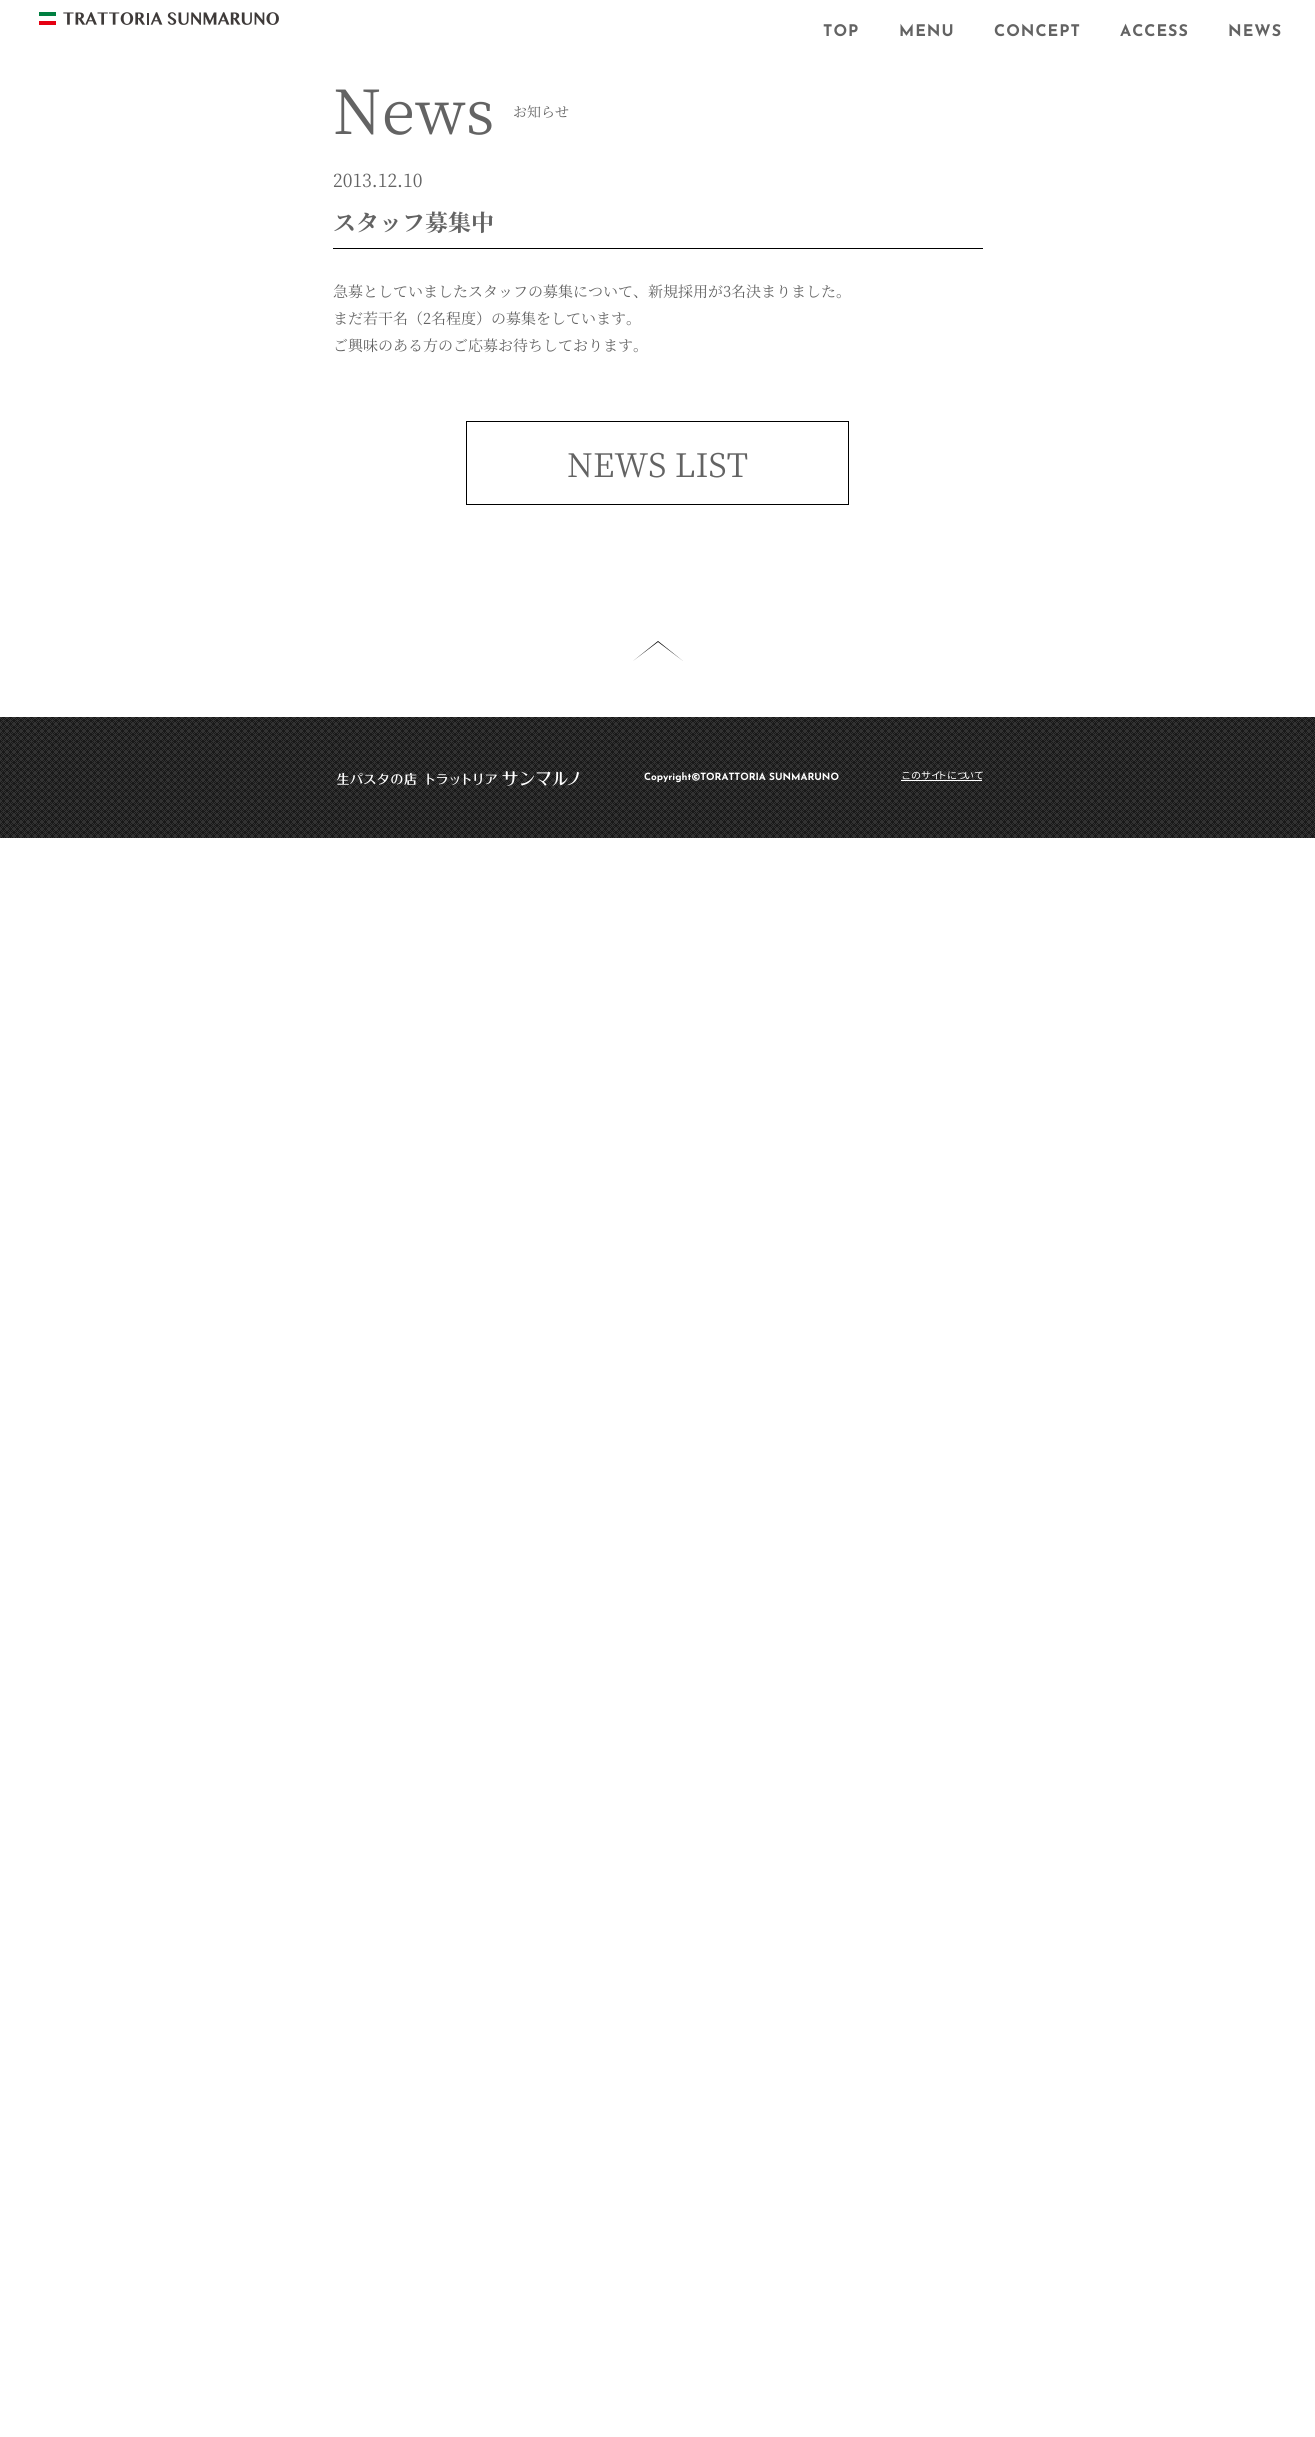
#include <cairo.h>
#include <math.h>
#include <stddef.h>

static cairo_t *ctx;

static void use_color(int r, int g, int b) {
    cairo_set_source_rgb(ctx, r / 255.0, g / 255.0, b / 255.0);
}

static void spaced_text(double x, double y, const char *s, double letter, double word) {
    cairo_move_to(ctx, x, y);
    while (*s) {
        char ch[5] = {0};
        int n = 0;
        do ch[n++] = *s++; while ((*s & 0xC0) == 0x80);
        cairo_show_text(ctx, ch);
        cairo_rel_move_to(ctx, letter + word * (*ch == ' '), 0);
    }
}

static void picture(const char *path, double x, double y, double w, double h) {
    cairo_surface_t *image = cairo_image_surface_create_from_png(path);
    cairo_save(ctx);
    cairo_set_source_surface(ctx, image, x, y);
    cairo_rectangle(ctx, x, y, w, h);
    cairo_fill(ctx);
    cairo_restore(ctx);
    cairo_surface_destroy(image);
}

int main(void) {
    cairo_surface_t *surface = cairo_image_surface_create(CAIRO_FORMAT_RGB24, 1315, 2437);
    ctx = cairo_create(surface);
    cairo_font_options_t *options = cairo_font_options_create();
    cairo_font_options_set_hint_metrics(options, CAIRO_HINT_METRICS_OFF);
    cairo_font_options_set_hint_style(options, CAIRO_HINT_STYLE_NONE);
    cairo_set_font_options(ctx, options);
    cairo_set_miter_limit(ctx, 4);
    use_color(255, 255, 255);
    cairo_paint(ctx);
    picture("img1.png", 39, 12, 240, 13);
    cairo_select_font_face(ctx, "Josefin Sans Thin", CAIRO_FONT_SLANT_NORMAL, CAIRO_FONT_WEIGHT_NORMAL);
    cairo_set_font_size(ctx, 16);
    use_color(99, 99, 99);
    spaced_text(823, 36, "TOP", 1, 0);
    spaced_text(899, 36, "MENU", 1, 0);
    spaced_text(994, 36, "CONCEPT", 1, 0);
    spaced_text(1120, 36, "ACCESS", 1, 0);
    spaced_text(1228, 36, "NEWS", 1, 0);
    cairo_select_font_face(ctx, "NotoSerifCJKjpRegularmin", CAIRO_FONT_SLANT_NORMAL, CAIRO_FONT_WEIGHT_NORMAL);
    cairo_set_font_size(ctx, 61);
    cairo_move_to(ctx, 333, 134);
    cairo_show_text(ctx, "News");
    cairo_set_font_size(ctx, 14);
    cairo_move_to(ctx, 513, 117);
    cairo_show_text(ctx, "お知らせ");
    cairo_set_font_size(ctx, 18);
    cairo_move_to(ctx, 333, 187);
    cairo_show_text(ctx, "2013.12.10");
    use_color(0, 0, 0);
    cairo_rectangle(ctx, 333, 248, 650, 1);
    cairo_fill(ctx);
    cairo_select_font_face(ctx, "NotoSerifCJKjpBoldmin", CAIRO_FONT_SLANT_NORMAL, CAIRO_FONT_WEIGHT_BOLD);
    cairo_set_font_size(ctx, 23);
    use_color(99, 99, 99);
    cairo_move_to(ctx, 333, 231);
    cairo_show_text(ctx, "スタッフ募集中");
    cairo_select_font_face(ctx, "NotoSerifCJKjpRegularmin", CAIRO_FONT_SLANT_NORMAL, CAIRO_FONT_WEIGHT_NORMAL);
    cairo_set_font_size(ctx, 15);
    cairo_move_to(ctx, 333, 297);
    cairo_show_text(ctx, "急募としていましたスタッフの募集について、新規採用が3名決まりました。");
    cairo_move_to(ctx, 333, 324);
    cairo_show_text(ctx, "まだ若干名（2名程度）の募集をしています。");
    cairo_move_to(ctx, 333, 351);
    cairo_show_text(ctx, "ご興味のある方のご応募お待ちしております。");
    cairo_rectangle(ctx, 466.5, 421.5, 382, 83);
    use_color(0, 0, 0);
    cairo_set_line_width(ctx, 1);
    cairo_stroke(ctx);
    cairo_set_font_size(ctx, 32.5);
    use_color(99, 99, 99);
    cairo_move_to(ctx, 567, 477);
    cairo_show_text(ctx, "NEWS LIST");
    use_color(0, 0, 0);
    cairo_new_path(ctx);
    cairo_move_to(ctx, 683, 661);
    cairo_line_to(ctx, 658, 642);
    cairo_line_to(ctx, 633, 661);
    cairo_line_to(ctx, 658, 641);
    cairo_close_path(ctx);
    cairo_fill(ctx);
    picture("img2.png", 0, 717, 1315, 121);
    picture("img3.png", 337, 771, 242, 15);
    cairo_select_font_face(ctx, "Josefin Sans Thin", CAIRO_FONT_SLANT_NORMAL, CAIRO_FONT_WEIGHT_NORMAL);
    cairo_set_font_size(ctx, 10);
    use_color(255, 255, 255);
    cairo_move_to(ctx, 644, 780);
    cairo_show_text(ctx, "Copyright©TORATTORIA SUNMARUNO");
    cairo_select_font_face(ctx, "Noto Sans CJK JP", CAIRO_FONT_SLANT_NORMAL, CAIRO_FONT_WEIGHT_NORMAL);
    cairo_move_to(ctx, 901, 779);
    cairo_show_text(ctx, "このサイ");
    cairo_move_to(ctx, 937, 779);
    cairo_show_text(ctx, "トにつ");
    cairo_move_to(ctx, 964, 779);
    cairo_show_text(ctx, "いて");
    cairo_rectangle(ctx, 901, 780, 81, 1);
    cairo_fill(ctx);
    cairo_surface_write_to_png(surface, "result.png");
    cairo_font_options_destroy(options);
    cairo_destroy(ctx);
    cairo_surface_destroy(surface);
    return 0;
}
